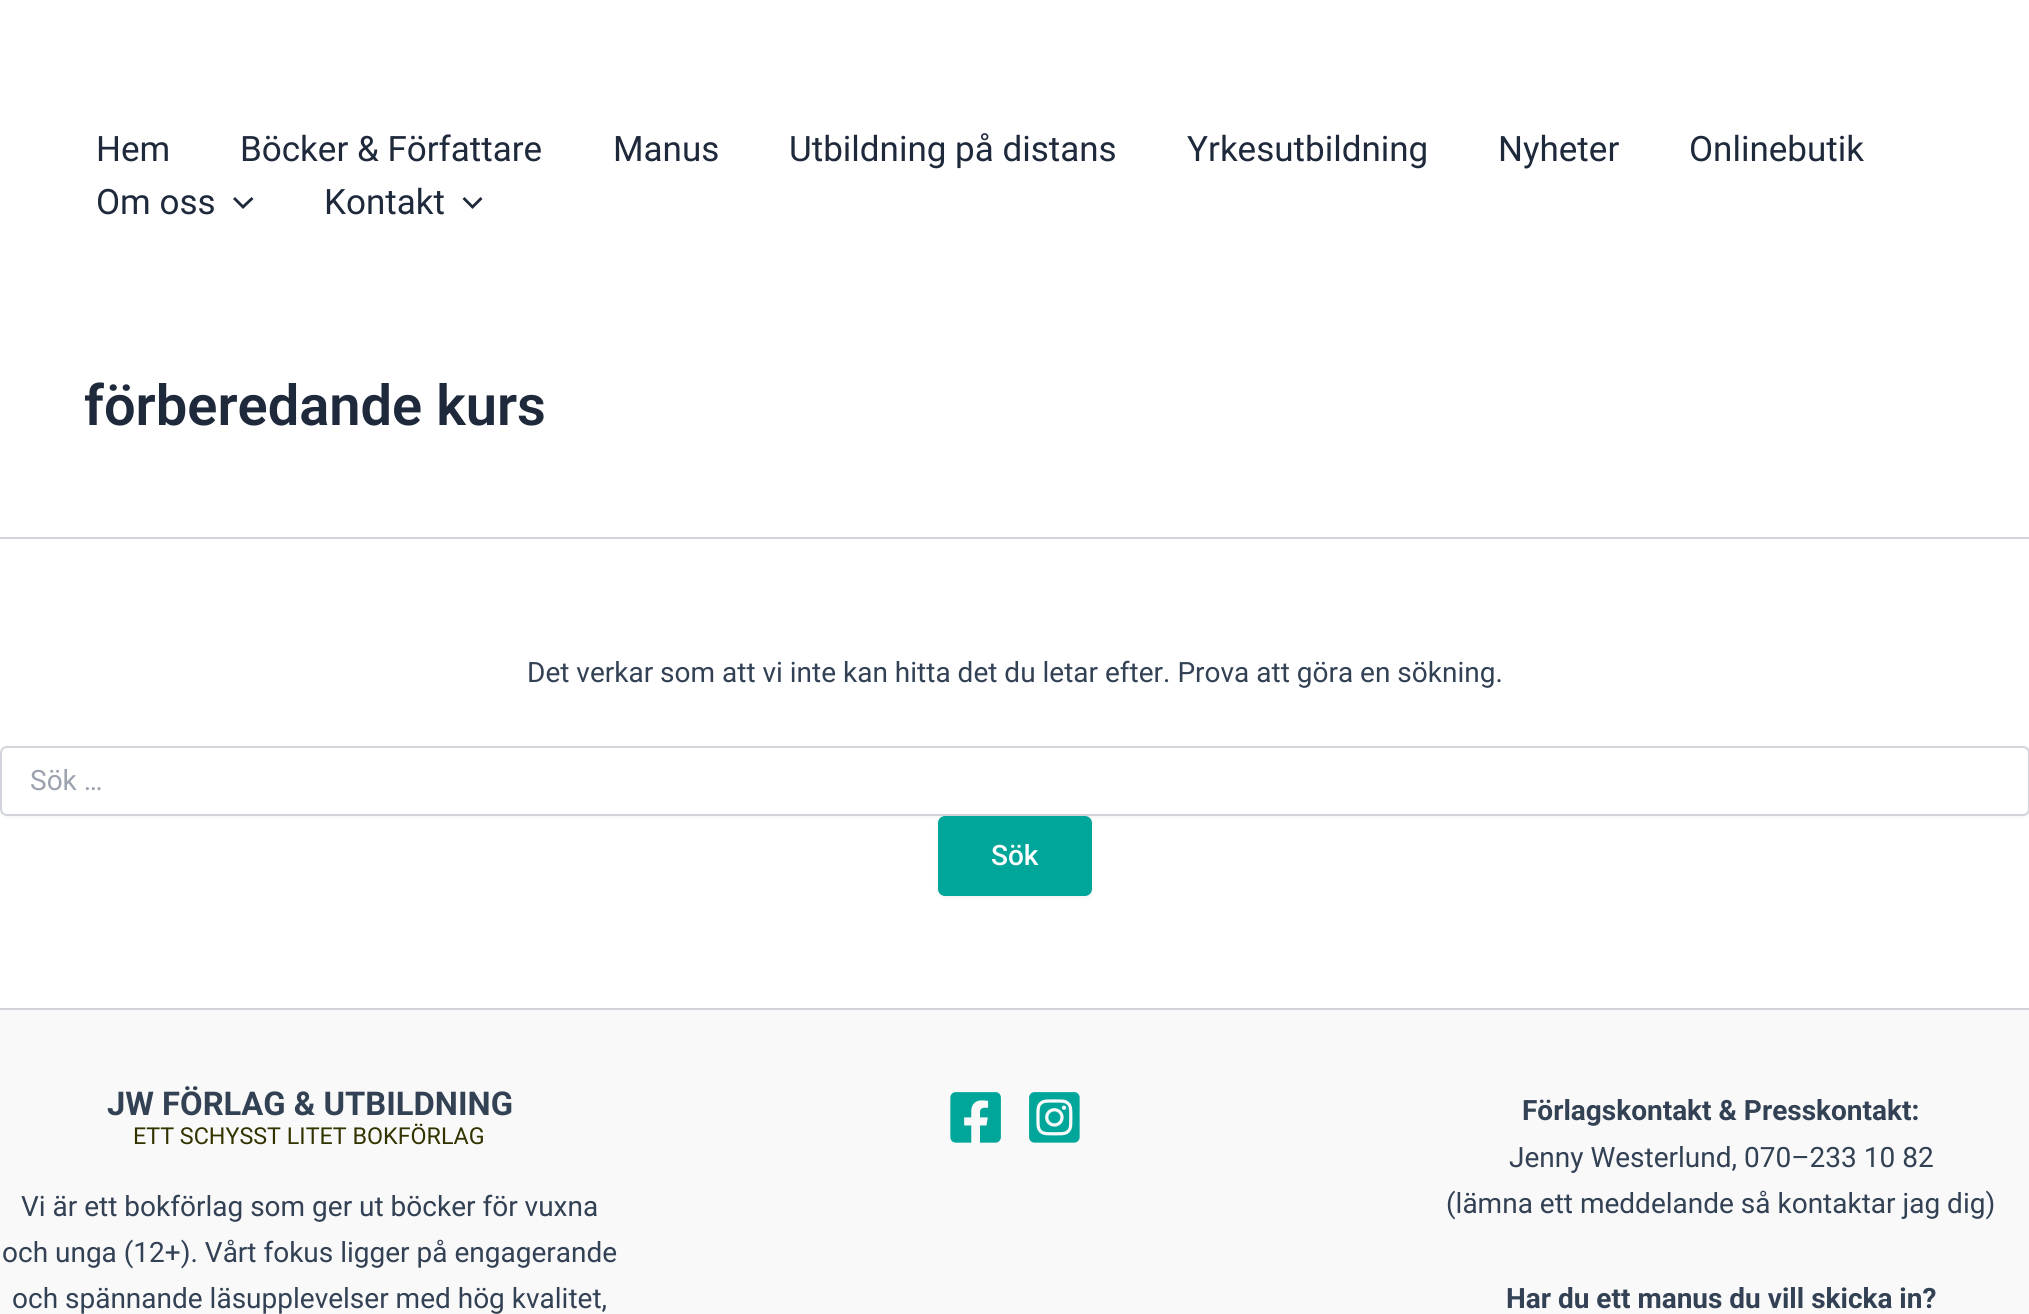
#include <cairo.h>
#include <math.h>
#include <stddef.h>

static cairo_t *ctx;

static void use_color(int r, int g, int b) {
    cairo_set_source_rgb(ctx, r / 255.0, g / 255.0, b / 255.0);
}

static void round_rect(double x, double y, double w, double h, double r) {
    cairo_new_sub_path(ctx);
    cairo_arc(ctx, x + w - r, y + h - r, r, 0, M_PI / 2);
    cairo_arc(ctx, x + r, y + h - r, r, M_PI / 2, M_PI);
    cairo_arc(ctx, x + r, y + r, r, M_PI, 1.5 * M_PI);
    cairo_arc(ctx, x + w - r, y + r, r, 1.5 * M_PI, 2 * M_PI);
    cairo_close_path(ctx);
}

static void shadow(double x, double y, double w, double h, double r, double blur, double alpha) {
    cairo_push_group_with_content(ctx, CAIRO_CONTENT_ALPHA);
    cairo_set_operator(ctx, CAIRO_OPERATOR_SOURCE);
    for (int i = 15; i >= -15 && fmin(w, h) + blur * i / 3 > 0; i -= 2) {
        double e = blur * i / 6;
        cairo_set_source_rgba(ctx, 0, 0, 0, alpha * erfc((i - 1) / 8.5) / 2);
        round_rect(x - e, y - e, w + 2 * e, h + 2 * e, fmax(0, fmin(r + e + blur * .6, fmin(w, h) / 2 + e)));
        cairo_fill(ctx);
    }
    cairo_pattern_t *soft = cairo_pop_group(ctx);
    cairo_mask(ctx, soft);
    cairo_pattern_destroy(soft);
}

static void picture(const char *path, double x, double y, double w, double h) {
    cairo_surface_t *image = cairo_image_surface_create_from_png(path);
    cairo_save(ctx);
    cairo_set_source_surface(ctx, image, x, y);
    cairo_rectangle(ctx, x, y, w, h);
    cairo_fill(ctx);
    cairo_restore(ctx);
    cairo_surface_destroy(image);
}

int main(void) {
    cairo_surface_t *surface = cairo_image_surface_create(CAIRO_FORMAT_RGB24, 2029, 1314);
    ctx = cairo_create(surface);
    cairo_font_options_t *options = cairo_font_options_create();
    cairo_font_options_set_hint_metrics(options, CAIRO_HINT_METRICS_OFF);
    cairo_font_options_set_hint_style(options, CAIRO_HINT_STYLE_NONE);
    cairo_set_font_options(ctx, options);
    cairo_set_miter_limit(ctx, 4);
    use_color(255, 255, 255);
    cairo_paint(ctx);
    cairo_select_font_face(ctx, "Roboto", CAIRO_FONT_SLANT_NORMAL, CAIRO_FONT_WEIGHT_NORMAL);
    cairo_set_font_size(ctx, 35);
    use_color(30, 41, 59);
    cairo_move_to(ctx, 96, 161);
    cairo_show_text(ctx, "Hem");
    cairo_move_to(ctx, 240, 161);
    cairo_show_text(ctx, "Böcker & Författare");
    cairo_move_to(ctx, 613, 161);
    cairo_show_text(ctx, "Manus");
    cairo_move_to(ctx, 789, 161);
    cairo_show_text(ctx, "Utbildning på distans");
    cairo_move_to(ctx, 1187, 161);
    cairo_show_text(ctx, "Yrkesutbildning");
    cairo_move_to(ctx, 1498, 161);
    cairo_show_text(ctx, "Nyheter");
    cairo_move_to(ctx, 1689, 161);
    cairo_show_text(ctx, "Onlinebutik");
    cairo_move_to(ctx, 96, 214);
    cairo_show_text(ctx, "Om oss");
    cairo_new_path(ctx);
    cairo_move_to(ctx, 233, 199);
    cairo_line_to(ctx, 243, 209);
    cairo_line_to(ctx, 253.5, 199);
    cairo_line_to(ctx, 251.5, 197);
    cairo_line_to(ctx, 243, 205);
    cairo_line_to(ctx, 235, 197);
    cairo_close_path(ctx);
    cairo_fill(ctx);
    cairo_move_to(ctx, 324, 214);
    cairo_show_text(ctx, "Kontakt");
    cairo_new_path(ctx);
    cairo_move_to(ctx, 462.5, 199);
    cairo_line_to(ctx, 472.5, 209);
    cairo_line_to(ctx, 482.5, 199);
    cairo_line_to(ctx, 480.5, 197);
    cairo_line_to(ctx, 472.5, 205);
    cairo_line_to(ctx, 464.5, 197);
    cairo_close_path(ctx);
    cairo_fill(ctx);
    use_color(209, 213, 219);
    cairo_rectangle(ctx, 0, 537, 2029, 2);
    cairo_fill(ctx);
    cairo_select_font_face(ctx, "Roboto SemiBold", CAIRO_FONT_SLANT_NORMAL, CAIRO_FONT_WEIGHT_NORMAL);
    cairo_set_font_size(ctx, 56);
    use_color(30, 41, 59);
    cairo_move_to(ctx, 84, 425);
    cairo_show_text(ctx, "förberedande kurs");
    cairo_select_font_face(ctx, "Roboto", CAIRO_FONT_SLANT_NORMAL, CAIRO_FONT_WEIGHT_NORMAL);
    cairo_set_font_size(ctx, 28);
    use_color(51, 65, 85);
    cairo_move_to(ctx, 527, 682);
    cairo_show_text(ctx, "Det verkar som att vi inte kan hitta det du letar efter. Prova att göra en sökning.");
    use_color(0, 0, 0);
    shadow(0, 747, 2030, 70, 7, 2, 0.05);
    use_color(255, 255, 255);
    round_rect(1, 747, 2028, 68, 6);
    cairo_fill_preserve(ctx);
    use_color(209, 213, 219);
    cairo_stroke(ctx);
    use_color(156, 163, 175);
    cairo_move_to(ctx, 30, 790);
    cairo_show_text(ctx, "Sök …");
    use_color(0, 0, 0);
    shadow(938, 817, 154, 81, 7, 2, 0.05);
    use_color(0, 166, 153);
    round_rect(938, 816, 154, 80, 7);
    cairo_fill(ctx);
    cairo_select_font_face(ctx, "Roboto Medium", CAIRO_FONT_SLANT_NORMAL, CAIRO_FONT_WEIGHT_NORMAL);
    use_color(255, 255, 255);
    cairo_move_to(ctx, 991, 865);
    cairo_show_text(ctx, "Sök");
    use_color(249, 249, 249);
    cairo_rectangle(ctx, 0, 1010, 2029, 304);
    cairo_fill(ctx);
    use_color(209, 213, 219);
    cairo_rectangle(ctx, 0, 1008, 2029, 2);
    cairo_fill(ctx);
    cairo_select_font_face(ctx, "Roboto", CAIRO_FONT_SLANT_NORMAL, CAIRO_FONT_WEIGHT_BOLD);
    cairo_set_font_size(ctx, 32.75);
    use_color(51, 65, 85);
    cairo_move_to(ctx, 107, 1115);
    cairo_show_text(ctx, "JW FÖRLAG & UTBILDNING");
    cairo_select_font_face(ctx, "Roboto", CAIRO_FONT_SLANT_NORMAL, CAIRO_FONT_WEIGHT_NORMAL);
    cairo_set_font_size(ctx, 23.3);
    use_color(51, 51, 0);
    cairo_move_to(ctx, 133, 1144);
    cairo_show_text(ctx, "ETT SCHYSST LITET BOKFÖRLAG");
    cairo_set_font_size(ctx, 28);
    use_color(51, 65, 85);
    cairo_move_to(ctx, 21, 1216);
    cairo_show_text(ctx, "Vi är ett bokförlag som ger ut böcker för vuxna");
    cairo_move_to(ctx, 2, 1262);
    cairo_show_text(ctx, "och unga (12+). Vårt fokus ligger på engagerande");
    cairo_move_to(ctx, 12, 1308);
    cairo_show_text(ctx, "och spännande läsupplevelser med hög kvalitet,");
    picture("img1.png", 950, 1092, 51, 51);
    picture("img2.png", 1029, 1092, 51, 51);
    cairo_select_font_face(ctx, "Roboto", CAIRO_FONT_SLANT_NORMAL, CAIRO_FONT_WEIGHT_BOLD);
    cairo_move_to(ctx, 1522, 1120);
    cairo_show_text(ctx, "Förlagskontakt & Presskontakt:");
    cairo_select_font_face(ctx, "Roboto", CAIRO_FONT_SLANT_NORMAL, CAIRO_FONT_WEIGHT_NORMAL);
    cairo_move_to(ctx, 1509, 1167);
    cairo_show_text(ctx, "Jenny Westerlund, 070–233 10 82");
    cairo_move_to(ctx, 1446, 1213);
    cairo_show_text(ctx, "(lämna ett meddelande så kontaktar jag dig)");
    cairo_select_font_face(ctx, "Roboto", CAIRO_FONT_SLANT_NORMAL, CAIRO_FONT_WEIGHT_BOLD);
    cairo_move_to(ctx, 1506, 1308);
    cairo_show_text(ctx, "Har du ett manus du vill skicka in?");
    cairo_surface_write_to_png(surface, "result.png");
    cairo_font_options_destroy(options);
    cairo_destroy(ctx);
    cairo_surface_destroy(surface);
    return 0;
}
